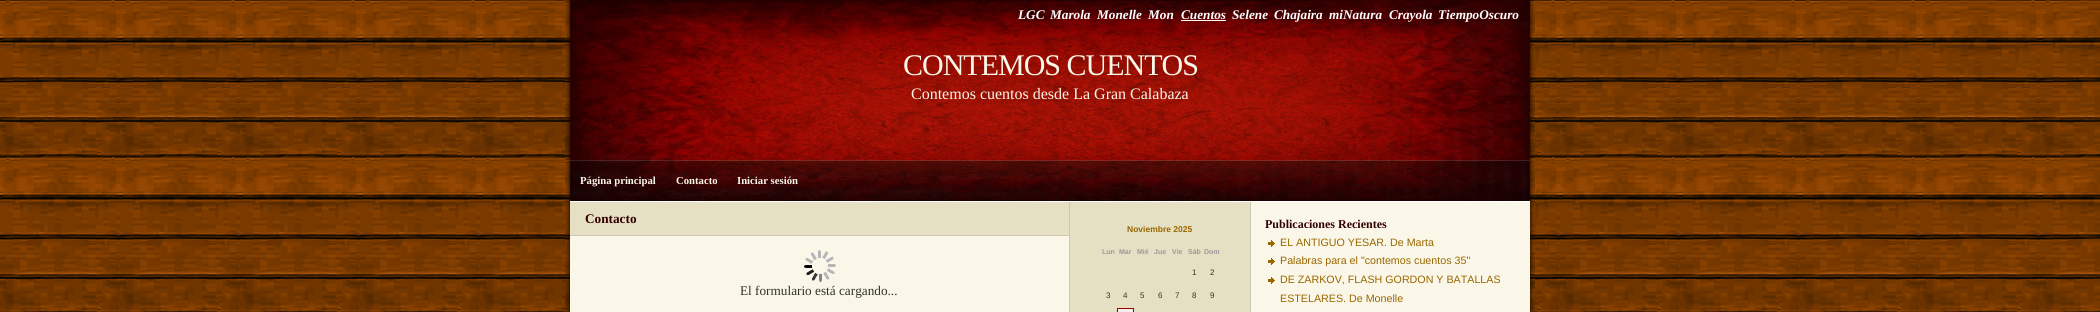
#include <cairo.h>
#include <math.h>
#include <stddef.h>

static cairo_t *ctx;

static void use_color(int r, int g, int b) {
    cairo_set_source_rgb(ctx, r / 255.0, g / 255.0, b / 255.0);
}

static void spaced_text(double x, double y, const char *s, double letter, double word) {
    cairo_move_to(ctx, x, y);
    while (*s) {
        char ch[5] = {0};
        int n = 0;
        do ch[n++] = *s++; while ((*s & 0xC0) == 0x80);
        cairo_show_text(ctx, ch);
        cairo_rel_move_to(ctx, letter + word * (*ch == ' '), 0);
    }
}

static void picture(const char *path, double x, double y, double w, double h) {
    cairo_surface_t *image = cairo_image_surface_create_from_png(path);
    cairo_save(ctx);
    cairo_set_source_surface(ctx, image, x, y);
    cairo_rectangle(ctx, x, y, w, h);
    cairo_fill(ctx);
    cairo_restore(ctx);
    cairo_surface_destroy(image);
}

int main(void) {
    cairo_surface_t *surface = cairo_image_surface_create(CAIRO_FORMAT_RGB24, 2100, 312);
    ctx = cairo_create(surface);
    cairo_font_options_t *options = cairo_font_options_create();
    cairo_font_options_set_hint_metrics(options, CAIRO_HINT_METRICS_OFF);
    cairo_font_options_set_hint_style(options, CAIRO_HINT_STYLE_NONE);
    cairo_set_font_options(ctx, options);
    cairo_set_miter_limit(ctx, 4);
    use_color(255, 255, 255);
    cairo_paint(ctx);
    picture("img1.png", 0, 0, 2100, 312);
    picture("img2.png", 565, 0, 970, 312);
    picture("img3.png", 570, 0, 960, 160);
    cairo_select_font_face(ctx, "Liberation Serif", CAIRO_FONT_SLANT_ITALIC, CAIRO_FONT_WEIGHT_BOLD);
    cairo_set_font_size(ctx, 13.25);
    use_color(255, 255, 255);
    cairo_move_to(ctx, 1018, 19);
    cairo_show_text(ctx, "LGC");
    cairo_move_to(ctx, 1050, 19);
    cairo_show_text(ctx, "Marola");
    cairo_move_to(ctx, 1097, 19);
    cairo_show_text(ctx, "Monelle");
    cairo_move_to(ctx, 1148, 19);
    cairo_show_text(ctx, "Mon");
    cairo_move_to(ctx, 1181, 19);
    cairo_show_text(ctx, "Cuentos");
    cairo_rectangle(ctx, 1181, 20, 45, 1);
    cairo_fill(ctx);
    cairo_move_to(ctx, 1232, 19);
    cairo_show_text(ctx, "Selene");
    cairo_move_to(ctx, 1274, 19);
    cairo_show_text(ctx, "Chajaira");
    cairo_move_to(ctx, 1329, 19);
    cairo_show_text(ctx, "miNatura");
    cairo_move_to(ctx, 1389, 19);
    cairo_show_text(ctx, "Crayola");
    cairo_move_to(ctx, 1438, 19);
    cairo_show_text(ctx, "TiempoOscuro");
    cairo_select_font_face(ctx, "Liberation Serif", CAIRO_FONT_SLANT_NORMAL, CAIRO_FONT_WEIGHT_NORMAL);
    cairo_set_font_size(ctx, 30);
    use_color(250, 247, 232);
    spaced_text(903, 75, "CONTEMOS CUENTOS", -1, 0);
    cairo_set_font_size(ctx, 16);
    cairo_move_to(ctx, 911, 99);
    cairo_show_text(ctx, "Contemos cuentos desde La Gran Calabaza");
    picture("img4.png", 570, 160, 960, 41);
    use_color(255, 255, 255);
    cairo_rectangle(ctx, 570, 201, 960, 1);
    cairo_fill(ctx);
    cairo_select_font_face(ctx, "Liberation Serif", CAIRO_FONT_SLANT_NORMAL, CAIRO_FONT_WEIGHT_BOLD);
    cairo_set_font_size(ctx, 10.7);
    use_color(250, 247, 232);
    cairo_move_to(ctx, 580, 184);
    cairo_show_text(ctx, "Página principal");
    cairo_move_to(ctx, 676, 184);
    cairo_show_text(ctx, "Contacto");
    cairo_move_to(ctx, 737, 184);
    cairo_show_text(ctx, "Iniciar sesión");
    use_color(229, 224, 195);
    cairo_rectangle(ctx, 570, 202, 499, 33);
    cairo_fill(ctx);
    use_color(204, 201, 184);
    cairo_rectangle(ctx, 570, 235, 499, 1);
    cairo_fill(ctx);
    cairo_set_font_size(ctx, 13.25);
    use_color(51, 0, 0);
    cairo_move_to(ctx, 585, 223);
    cairo_show_text(ctx, "Contacto");
    picture("img5.png", 804, 250, 32, 32);
    cairo_select_font_face(ctx, "Liberation Serif", CAIRO_FONT_SLANT_NORMAL, CAIRO_FONT_WEIGHT_NORMAL);
    use_color(48, 51, 36);
    cairo_move_to(ctx, 740, 295);
    cairo_show_text(ctx, "El formulario está cargando...");
    cairo_select_font_face(ctx, "Liberation Sans", CAIRO_FONT_SLANT_NORMAL, CAIRO_FONT_WEIGHT_BOLD);
    cairo_set_font_size(ctx, 8.5);
    use_color(153, 102, 0);
    cairo_move_to(ctx, 1127, 232);
    cairo_show_text(ctx, "Noviembre 2025");
    cairo_set_font_size(ctx, 7);
    use_color(153, 153, 153);
    cairo_move_to(ctx, 1102, 254);
    cairo_show_text(ctx, "Lun");
    cairo_move_to(ctx, 1119, 254);
    cairo_show_text(ctx, "Mar");
    cairo_move_to(ctx, 1137, 254);
    cairo_show_text(ctx, "Mié");
    cairo_move_to(ctx, 1154, 254);
    cairo_show_text(ctx, "Jue");
    cairo_move_to(ctx, 1172, 254);
    cairo_show_text(ctx, "Vie");
    cairo_move_to(ctx, 1188, 254);
    cairo_show_text(ctx, "Sáb");
    cairo_move_to(ctx, 1204, 254);
    cairo_show_text(ctx, "Dom");
    cairo_select_font_face(ctx, "Liberation Sans", CAIRO_FONT_SLANT_NORMAL, CAIRO_FONT_WEIGHT_NORMAL);
    cairo_set_font_size(ctx, 8);
    use_color(48, 51, 36);
    cairo_move_to(ctx, 1192, 275);
    cairo_show_text(ctx, "1");
    cairo_move_to(ctx, 1210, 275);
    cairo_show_text(ctx, "2");
    cairo_move_to(ctx, 1106, 298);
    cairo_show_text(ctx, "3");
    cairo_move_to(ctx, 1123, 298);
    cairo_show_text(ctx, "4");
    cairo_move_to(ctx, 1140, 298);
    cairo_show_text(ctx, "5");
    cairo_move_to(ctx, 1158, 298);
    cairo_show_text(ctx, "6");
    cairo_move_to(ctx, 1175, 298);
    cairo_show_text(ctx, "7");
    cairo_move_to(ctx, 1192, 298);
    cairo_show_text(ctx, "8");
    cairo_move_to(ctx, 1210, 298);
    cairo_show_text(ctx, "9");
    use_color(246, 238, 238);
    cairo_rectangle(ctx, 1117.5, 308.5, 16, 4);
    cairo_fill_preserve(ctx);
    use_color(153, 0, 0);
    cairo_set_line_width(ctx, 1);
    cairo_stroke(ctx);
    cairo_select_font_face(ctx, "Liberation Serif", CAIRO_FONT_SLANT_NORMAL, CAIRO_FONT_WEIGHT_BOLD);
    cairo_set_font_size(ctx, 12);
    use_color(51, 0, 0);
    cairo_move_to(ctx, 1265, 228);
    cairo_show_text(ctx, "Publicaciones Recientes");
    picture("img6.png", 1268, 240, 7, 7);
    cairo_select_font_face(ctx, "Liberation Sans", CAIRO_FONT_SLANT_NORMAL, CAIRO_FONT_WEIGHT_NORMAL);
    cairo_set_font_size(ctx, 10.7);
    use_color(153, 102, 0);
    cairo_move_to(ctx, 1280, 246);
    cairo_show_text(ctx, "EL ANTIGUO YESAR. De Marta");
    picture("img6.png", 1268, 258, 7, 7);
    cairo_move_to(ctx, 1280, 264);
    cairo_show_text(ctx, "Palabras para el \"contemos cuentos 35\"");
    picture("img6.png", 1268, 277, 7, 7);
    cairo_move_to(ctx, 1280, 283);
    cairo_show_text(ctx, "DE ZARKOV, FLASH GORDON Y BATALLAS");
    cairo_move_to(ctx, 1280, 302);
    cairo_show_text(ctx, "ESTELARES. De Monelle");
    cairo_surface_write_to_png(surface, "result.png");
    cairo_font_options_destroy(options);
    cairo_destroy(ctx);
    cairo_surface_destroy(surface);
    return 0;
}
